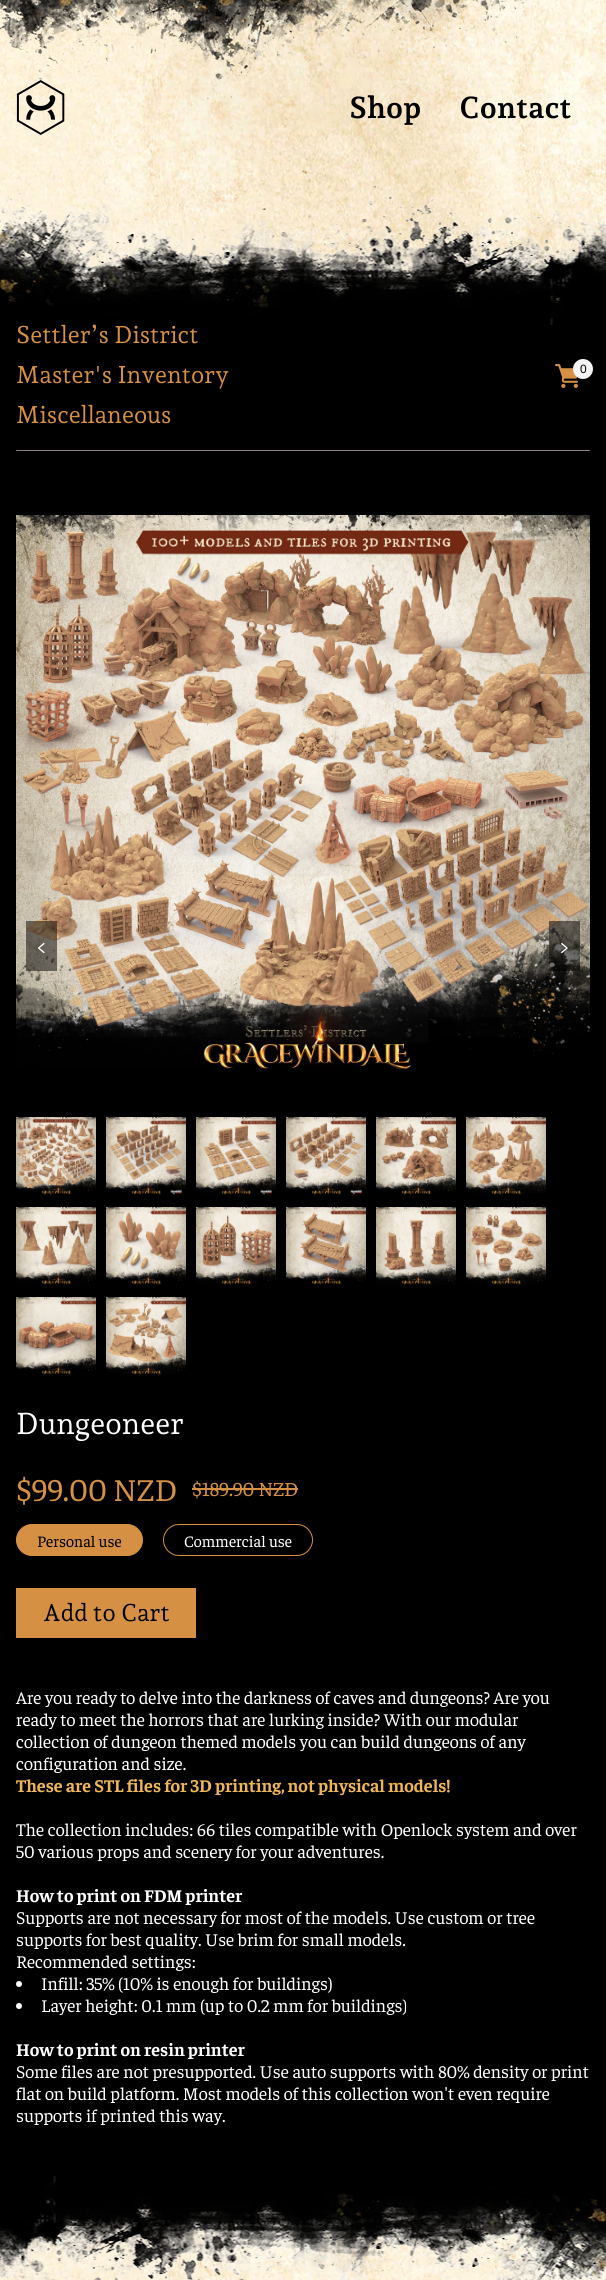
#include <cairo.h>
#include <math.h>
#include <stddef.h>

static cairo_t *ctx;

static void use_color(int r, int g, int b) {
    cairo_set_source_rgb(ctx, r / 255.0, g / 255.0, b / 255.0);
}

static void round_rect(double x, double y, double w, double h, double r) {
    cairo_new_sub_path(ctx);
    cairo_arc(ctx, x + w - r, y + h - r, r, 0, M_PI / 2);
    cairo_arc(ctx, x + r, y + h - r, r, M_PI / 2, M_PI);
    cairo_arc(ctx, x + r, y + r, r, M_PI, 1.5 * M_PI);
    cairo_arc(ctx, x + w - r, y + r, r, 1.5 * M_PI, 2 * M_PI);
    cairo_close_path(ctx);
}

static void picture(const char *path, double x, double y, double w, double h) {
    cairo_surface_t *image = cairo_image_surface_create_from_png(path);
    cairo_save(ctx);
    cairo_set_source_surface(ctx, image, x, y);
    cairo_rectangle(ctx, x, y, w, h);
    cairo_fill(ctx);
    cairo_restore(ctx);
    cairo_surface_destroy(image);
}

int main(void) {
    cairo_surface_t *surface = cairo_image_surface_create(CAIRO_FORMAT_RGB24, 606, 2280);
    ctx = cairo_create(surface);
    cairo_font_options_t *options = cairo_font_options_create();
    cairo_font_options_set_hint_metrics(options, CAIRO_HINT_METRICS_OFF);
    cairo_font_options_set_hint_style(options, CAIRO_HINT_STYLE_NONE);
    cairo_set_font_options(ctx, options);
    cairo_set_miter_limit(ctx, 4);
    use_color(255, 255, 255);
    cairo_paint(ctx);
    picture("img1.png", 0, 0, 606, 2280);
    picture("img2.png", 0, 0, 606, 105);
    picture("img3.png", 16, 80, 49, 55);
    cairo_select_font_face(ctx, "Andada Pro", CAIRO_FONT_SLANT_NORMAL, CAIRO_FONT_WEIGHT_BOLD);
    cairo_set_font_size(ctx, 30);
    use_color(0, 0, 0);
    cairo_move_to(ctx, 349, 118);
    cairo_show_text(ctx, "Shop");
    cairo_move_to(ctx, 459, 118);
    cairo_show_text(ctx, "Contact");
    cairo_rectangle(ctx, 0, 325, 606, 1851);
    cairo_fill(ctx);
    picture("img4.png", 0, 172, 606, 153);
    cairo_select_font_face(ctx, "Andada Pro", CAIRO_FONT_SLANT_NORMAL, CAIRO_FONT_WEIGHT_NORMAL);
    cairo_set_font_size(ctx, 24);
    use_color(213, 144, 68);
    cairo_move_to(ctx, 16, 343);
    cairo_show_text(ctx, "Settler’s District");
    cairo_move_to(ctx, 16, 383);
    cairo_show_text(ctx, "Master's Inventory");
    cairo_move_to(ctx, 16, 423);
    cairo_show_text(ctx, "Miscellaneous");
    picture("img5.png", 555, 364, 23, 24);
    use_color(245, 245, 245);
    cairo_arc(ctx, 583, 369, 10, 0, 2 * M_PI);
    cairo_fill(ctx);
    cairo_select_font_face(ctx, "Liberation Sans", CAIRO_FONT_SLANT_NORMAL, CAIRO_FONT_WEIGHT_NORMAL);
    cairo_set_font_size(ctx, 12);
    use_color(0, 0, 0);
    cairo_move_to(ctx, 580, 373);
    cairo_show_text(ctx, "0");
    use_color(140, 129, 126);
    round_rect(16, 450, 574, 1, 0.5);
    cairo_fill(ctx);
    picture("img6.png", 16, 515, 574, 555);
    cairo_set_source_rgba(ctx, 0, 0, 0, 0.5);
    cairo_rectangle(ctx, 26, 921, 31, 50);
    cairo_fill(ctx);
    cairo_select_font_face(ctx, "Andada Pro", CAIRO_FONT_SLANT_NORMAL, CAIRO_FONT_WEIGHT_NORMAL);
    cairo_set_font_size(ctx, 20);
    use_color(255, 255, 255);
    cairo_move_to(ctx, 36, 953);
    cairo_show_text(ctx, "<");
    cairo_set_source_rgba(ctx, 0, 0, 0, 0.5);
    cairo_rectangle(ctx, 549, 921, 31, 50);
    cairo_fill(ctx);
    use_color(255, 255, 255);
    cairo_move_to(ctx, 559, 953);
    cairo_show_text(ctx, ">");
    picture("img7.png", 16, 1117, 80, 78);
    picture("img8.png", 106, 1117, 80, 78);
    picture("img9.png", 196, 1117, 80, 78);
    picture("img10.png", 286, 1117, 80, 78);
    picture("img11.png", 376, 1117, 80, 78);
    picture("img12.png", 466, 1117, 80, 78);
    picture("img13.png", 16, 1207, 80, 78);
    picture("img14.png", 106, 1207, 80, 78);
    picture("img15.png", 196, 1207, 80, 78);
    picture("img16.png", 286, 1207, 80, 78);
    picture("img17.png", 376, 1207, 80, 78);
    picture("img18.png", 466, 1207, 80, 78);
    picture("img19.png", 16, 1297, 80, 78);
    picture("img20.png", 106, 1297, 80, 78);
    cairo_set_font_size(ctx, 30);
    cairo_move_to(ctx, 16, 1434);
    cairo_show_text(ctx, "Dungeoneer");
    cairo_select_font_face(ctx, "Faustina", CAIRO_FONT_SLANT_NORMAL, CAIRO_FONT_WEIGHT_NORMAL);
    cairo_set_font_size(ctx, 32);
    use_color(213, 144, 68);
    cairo_move_to(ctx, 16, 1501);
    cairo_show_text(ctx, "$99.00 NZD");
    cairo_set_font_size(ctx, 20);
    cairo_move_to(ctx, 192, 1496);
    cairo_show_text(ctx, "$189.90 NZD");
    cairo_rectangle(ctx, 192, 1488, 106, 2);
    cairo_fill(ctx);
    round_rect(16.5, 1524.5, 126, 31, 15.5);
    cairo_fill_preserve(ctx);
    cairo_set_line_width(ctx, 1);
    cairo_stroke(ctx);
    cairo_set_font_size(ctx, 16);
    use_color(0, 0, 0);
    cairo_move_to(ctx, 37, 1547);
    cairo_show_text(ctx, "Personal use");
    round_rect(163.5, 1524.5, 149, 31, 15.5);
    use_color(213, 144, 68);
    cairo_stroke(ctx);
    use_color(255, 255, 255);
    cairo_move_to(ctx, 184, 1547);
    cairo_show_text(ctx, "Commercial use");
    use_color(213, 144, 68);
    cairo_rectangle(ctx, 16, 1588, 180, 50);
    cairo_fill(ctx);
    cairo_select_font_face(ctx, "Andada Pro", CAIRO_FONT_SLANT_NORMAL, CAIRO_FONT_WEIGHT_NORMAL);
    cairo_set_font_size(ctx, 24);
    use_color(0, 0, 0);
    cairo_move_to(ctx, 43, 1621);
    cairo_show_text(ctx, "Add to Cart");
    cairo_select_font_face(ctx, "Faustina", CAIRO_FONT_SLANT_NORMAL, CAIRO_FONT_WEIGHT_NORMAL);
    cairo_set_font_size(ctx, 18);
    use_color(255, 255, 255);
    cairo_move_to(ctx, 16, 1704);
    cairo_show_text(ctx, "Are you ready to delve into the darkness of caves and dungeons? Are you");
    cairo_move_to(ctx, 16, 1726);
    cairo_show_text(ctx, "ready to meet the horrors that are lurking inside? With our modular");
    cairo_move_to(ctx, 16, 1748);
    cairo_show_text(ctx, "collection of dungeon themed models you can build dungeons of any");
    cairo_move_to(ctx, 16, 1770);
    cairo_show_text(ctx, "configuration and size.");
    cairo_select_font_face(ctx, "Faustina", CAIRO_FONT_SLANT_NORMAL, CAIRO_FONT_WEIGHT_BOLD);
    use_color(239, 181, 89);
    cairo_move_to(ctx, 16, 1792);
    cairo_show_text(ctx, "These are STL files for 3D printing, not physical models!");
    cairo_select_font_face(ctx, "Faustina", CAIRO_FONT_SLANT_NORMAL, CAIRO_FONT_WEIGHT_NORMAL);
    use_color(255, 255, 255);
    cairo_move_to(ctx, 16, 1836);
    cairo_show_text(ctx, "The collection includes: 66 tiles compatible with Openlock system and over");
    cairo_move_to(ctx, 16, 1858);
    cairo_show_text(ctx, "50 various props and scenery for your adventures.");
    cairo_select_font_face(ctx, "Faustina", CAIRO_FONT_SLANT_NORMAL, CAIRO_FONT_WEIGHT_BOLD);
    cairo_move_to(ctx, 16, 1902);
    cairo_show_text(ctx, "How to print on FDM printer");
    cairo_select_font_face(ctx, "Faustina", CAIRO_FONT_SLANT_NORMAL, CAIRO_FONT_WEIGHT_NORMAL);
    cairo_move_to(ctx, 16, 1924);
    cairo_show_text(ctx, "Supports are not necessary for most of the models. Use custom or tree");
    cairo_move_to(ctx, 16, 1946);
    cairo_show_text(ctx, "supports for best quality. Use brim for small models.");
    cairo_move_to(ctx, 16, 1968);
    cairo_show_text(ctx, "Recommended settings:");
    cairo_new_path(ctx);
    cairo_arc(ctx, 19, 1984, 3, 0, 2 * M_PI);
    cairo_fill(ctx);
    cairo_move_to(ctx, 41, 1990);
    cairo_show_text(ctx, "Infill: 35% (10% is enough for buildings)");
    cairo_new_path(ctx);
    cairo_arc(ctx, 19, 2006, 3, 0, 2 * M_PI);
    cairo_fill(ctx);
    cairo_move_to(ctx, 41, 2012);
    cairo_show_text(ctx, "Layer height: 0.1 mm (up to 0.2 mm for buildings)");
    cairo_select_font_face(ctx, "Faustina", CAIRO_FONT_SLANT_NORMAL, CAIRO_FONT_WEIGHT_BOLD);
    cairo_move_to(ctx, 16, 2056);
    cairo_show_text(ctx, "How to print on resin printer");
    cairo_select_font_face(ctx, "Faustina", CAIRO_FONT_SLANT_NORMAL, CAIRO_FONT_WEIGHT_NORMAL);
    cairo_move_to(ctx, 16, 2078);
    cairo_show_text(ctx, "Some files are not presupported. Use auto supports with 80% density or print");
    cairo_move_to(ctx, 16, 2100);
    cairo_show_text(ctx, "flat on build platform. Most models of this collection won't even require");
    cairo_move_to(ctx, 16, 2122);
    cairo_show_text(ctx, "supports if printed this way.");
    picture("img21.png", 0, 2176, 606, 104);
    cairo_surface_write_to_png(surface, "result.png");
    cairo_font_options_destroy(options);
    cairo_destroy(ctx);
    cairo_surface_destroy(surface);
    return 0;
}
